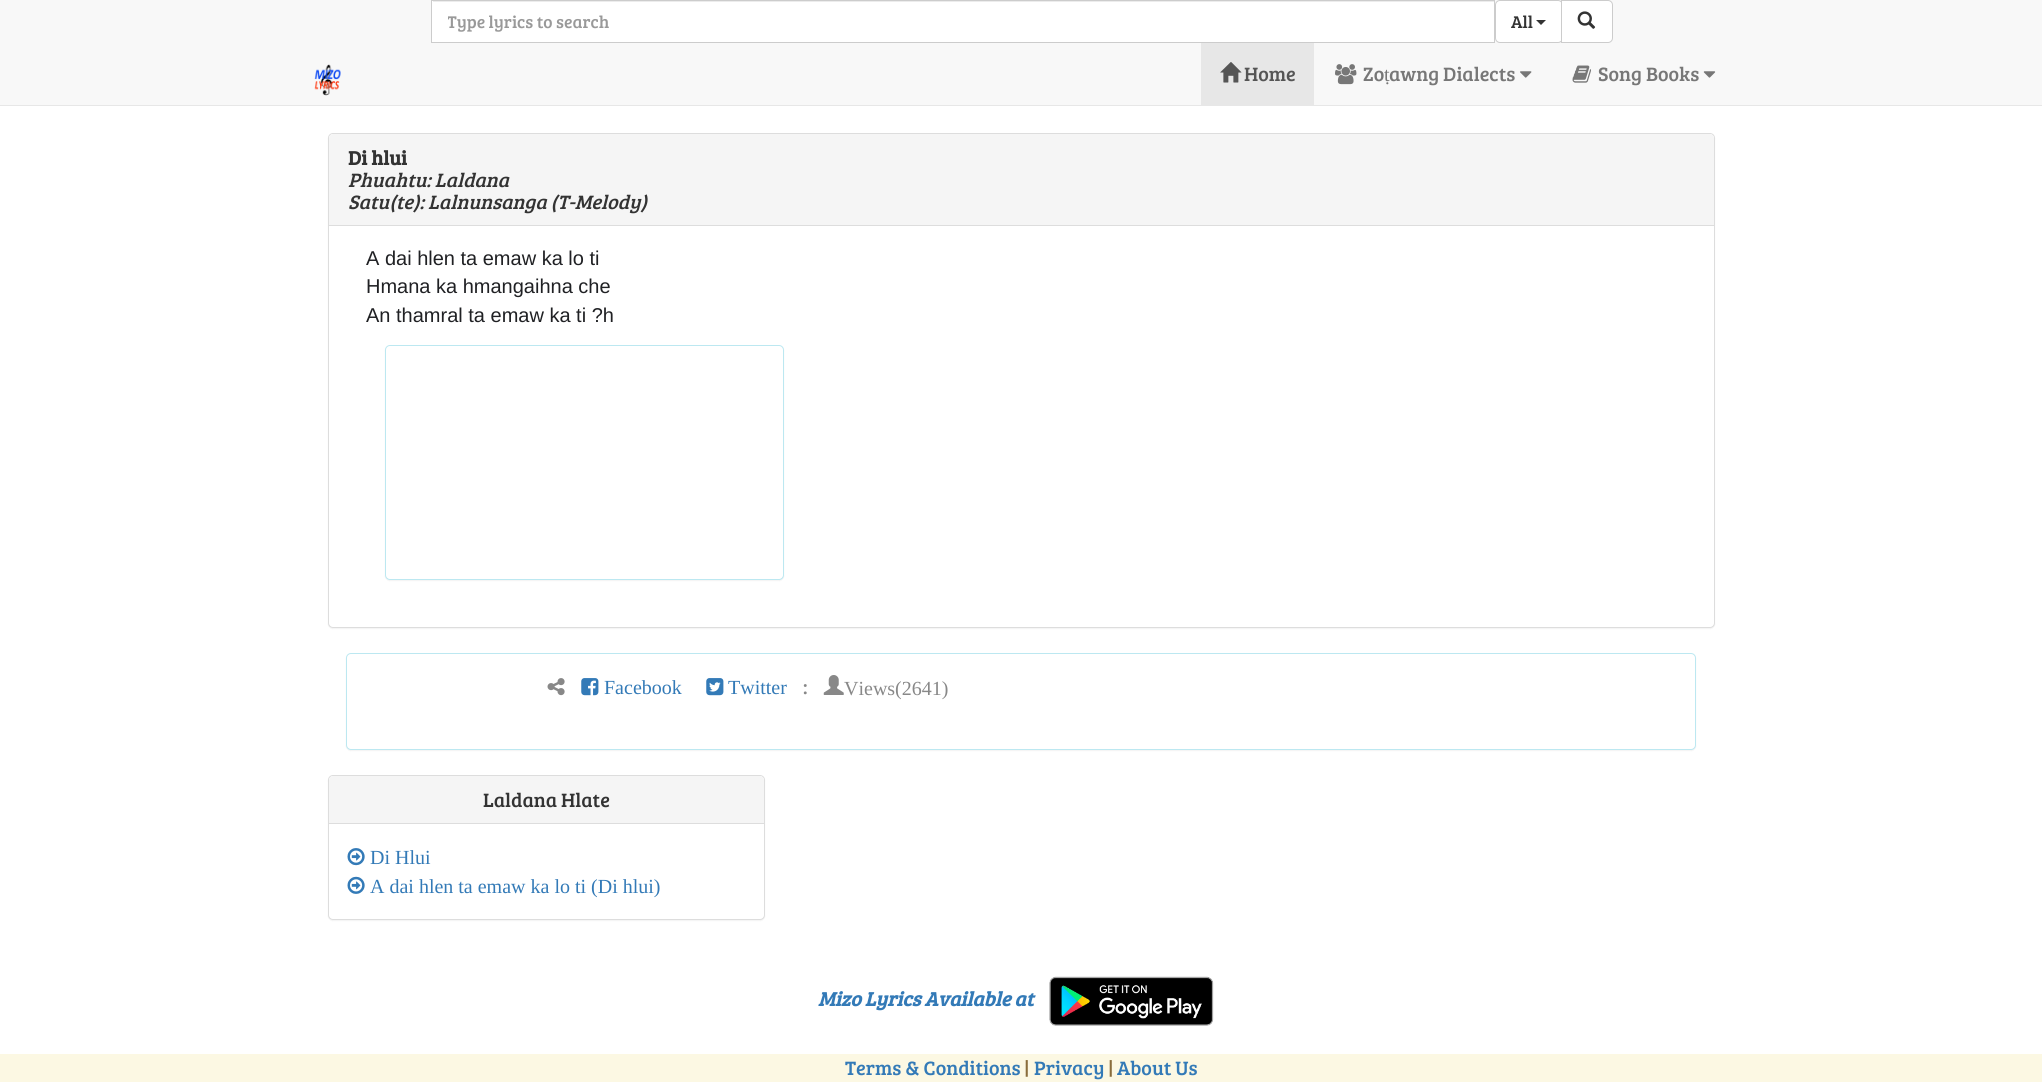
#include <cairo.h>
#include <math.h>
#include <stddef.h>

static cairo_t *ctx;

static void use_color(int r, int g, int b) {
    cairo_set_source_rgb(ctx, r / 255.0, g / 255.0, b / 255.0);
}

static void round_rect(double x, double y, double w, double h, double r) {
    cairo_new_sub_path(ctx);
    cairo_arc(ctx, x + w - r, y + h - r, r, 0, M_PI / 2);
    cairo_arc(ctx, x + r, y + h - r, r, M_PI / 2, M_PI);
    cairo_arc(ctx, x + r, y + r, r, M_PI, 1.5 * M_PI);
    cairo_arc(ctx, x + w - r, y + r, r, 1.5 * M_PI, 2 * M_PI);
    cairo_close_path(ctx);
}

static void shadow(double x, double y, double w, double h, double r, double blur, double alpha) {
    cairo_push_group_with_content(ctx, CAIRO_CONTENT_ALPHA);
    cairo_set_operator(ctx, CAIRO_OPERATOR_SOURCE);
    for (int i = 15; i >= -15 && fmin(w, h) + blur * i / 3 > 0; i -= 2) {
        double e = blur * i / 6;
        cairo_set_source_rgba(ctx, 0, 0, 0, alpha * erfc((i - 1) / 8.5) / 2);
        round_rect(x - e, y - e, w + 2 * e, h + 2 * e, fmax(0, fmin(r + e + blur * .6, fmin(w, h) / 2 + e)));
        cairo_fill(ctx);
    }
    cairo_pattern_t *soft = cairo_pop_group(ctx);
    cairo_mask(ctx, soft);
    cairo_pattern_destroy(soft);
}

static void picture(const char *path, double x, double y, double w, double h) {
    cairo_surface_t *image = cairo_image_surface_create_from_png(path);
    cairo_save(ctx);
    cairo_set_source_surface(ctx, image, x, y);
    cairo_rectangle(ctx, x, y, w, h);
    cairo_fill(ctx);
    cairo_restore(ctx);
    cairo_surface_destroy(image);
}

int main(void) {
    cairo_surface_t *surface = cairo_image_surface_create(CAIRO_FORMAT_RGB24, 2042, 1082);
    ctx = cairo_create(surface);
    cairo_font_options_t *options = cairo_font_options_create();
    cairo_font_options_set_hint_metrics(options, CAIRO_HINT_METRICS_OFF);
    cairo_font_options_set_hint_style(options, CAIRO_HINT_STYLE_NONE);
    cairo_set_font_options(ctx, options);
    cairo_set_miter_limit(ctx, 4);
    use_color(255, 255, 255);
    cairo_paint(ctx);
    use_color(248, 248, 248);
    cairo_rectangle(ctx, 0, 0, 2042, 105);
    cairo_fill(ctx);
    use_color(231, 231, 231);
    cairo_rectangle(ctx, 0, 105, 2042, 1);
    cairo_fill(ctx);
    use_color(255, 255, 255);
    cairo_rectangle(ctx, 432, 1, 1062, 41);
    cairo_fill(ctx);
    use_color(236, 236, 236);
    cairo_rectangle(ctx, 433, 1, 1061, 1);
    cairo_fill(ctx);
    cairo_rectangle(ctx, 431.5, 0.5, 1063, 42);
    use_color(204, 204, 204);
    cairo_set_line_width(ctx, 1);
    cairo_stroke(ctx);
    cairo_save(ctx);
    cairo_rectangle(ctx, 448, 10, 1031, 24);
    cairo_clip(ctx);
    cairo_select_font_face(ctx, "Bree Serif", CAIRO_FONT_SLANT_NORMAL, CAIRO_FONT_WEIGHT_NORMAL);
    cairo_set_font_size(ctx, 17.5);
    use_color(153, 153, 153);
    cairo_move_to(ctx, 447, 28);
    cairo_show_text(ctx, "Type lyrics to search");
    cairo_restore(ctx);
    use_color(255, 255, 255);
    round_rect(1495.5, 0.5, 67, 42, 4.5);
    cairo_fill_preserve(ctx);
    use_color(204, 204, 204);
    cairo_stroke(ctx);
    cairo_select_font_face(ctx, "Bree Serif", CAIRO_FONT_SLANT_NORMAL, CAIRO_FONT_WEIGHT_NORMAL);
    cairo_set_font_size(ctx, 17.5);
    use_color(51, 51, 51);
    cairo_move_to(ctx, 1511, 28);
    cairo_show_text(ctx, "All");
    cairo_new_path(ctx);
    cairo_move_to(ctx, 1536, 20);
    cairo_line_to(ctx, 1546, 20);
    cairo_line_to(ctx, 1541, 25);
    cairo_close_path(ctx);
    cairo_fill(ctx);
    use_color(255, 255, 255);
    cairo_new_path(ctx);
    cairo_move_to(ctx, 1561.5, 0.5);
    cairo_line_to(ctx, 1608, 0.5);
    cairo_curve_to(ctx, 1610.5, 0.5, 1612.5, 2.5, 1612.5, 5);
    cairo_line_to(ctx, 1612.5, 38);
    cairo_curve_to(ctx, 1612.5, 40.5, 1610.5, 42.5, 1608, 42.5);
    cairo_line_to(ctx, 1561.5, 42.5);
    cairo_close_path(ctx);
    cairo_fill_preserve(ctx);
    use_color(204, 204, 204);
    cairo_stroke(ctx);
    picture("img1.png", 1577, 11, 19, 18);
    picture("img2.png", 314, 64, 27, 32);
    use_color(231, 231, 231);
    cairo_rectangle(ctx, 1201, 43, 113, 62);
    cairo_fill(ctx);
    picture("img3.png", 1220, 62, 22, 21);
    cairo_set_font_size(ctx, 20);
    use_color(85, 85, 85);
    cairo_move_to(ctx, 1244, 81);
    cairo_show_text(ctx, "Home");
    picture("img4.png", 1335, 64, 22, 21);
    use_color(119, 119, 119);
    cairo_move_to(ctx, 1363, 81);
    cairo_show_text(ctx, "Zo");
    cairo_select_font_face(ctx, "Liberation Serif", CAIRO_FONT_SLANT_NORMAL, CAIRO_FONT_WEIGHT_NORMAL);
    cairo_move_to(ctx, 1384, 81);
    cairo_show_text(ctx, "ṭ");
    cairo_select_font_face(ctx, "Bree Serif", CAIRO_FONT_SLANT_NORMAL, CAIRO_FONT_WEIGHT_NORMAL);
    cairo_move_to(ctx, 1389, 81);
    cairo_show_text(ctx, "awng Dialects");
    picture("img5.png", 1520, 71, 12, 7);
    picture("img6.png", 1572, 65, 19, 18);
    cairo_move_to(ctx, 1598, 81);
    cairo_show_text(ctx, "Song Books");
    picture("img7.png", 1703, 71, 13, 7);
    use_color(0, 0, 0);
    shadow(328, 134, 1387, 495, 5, 0.5, 0.05);
    use_color(255, 255, 255);
    round_rect(328.5, 133.5, 1386, 494, 4.5);
    cairo_fill_preserve(ctx);
    use_color(221, 221, 221);
    cairo_stroke(ctx);
    use_color(245, 245, 245);
    cairo_new_path(ctx);
    cairo_move_to(ctx, 333, 134);
    cairo_line_to(ctx, 1710, 134);
    cairo_curve_to(ctx, 1712, 134, 1714, 136, 1714, 138);
    cairo_line_to(ctx, 1714, 226);
    cairo_line_to(ctx, 329, 226);
    cairo_line_to(ctx, 329, 138);
    cairo_curve_to(ctx, 329, 136, 331, 134, 333, 134);
    cairo_close_path(ctx);
    cairo_fill(ctx);
    use_color(221, 221, 221);
    cairo_rectangle(ctx, 329, 225, 1385, 1);
    cairo_fill(ctx);
    cairo_select_font_face(ctx, "Bree Serif", CAIRO_FONT_SLANT_NORMAL, CAIRO_FONT_WEIGHT_BOLD);
    use_color(51, 51, 51);
    cairo_move_to(ctx, 348, 165);
    cairo_show_text(ctx, "Di hlui");
    cairo_select_font_face(ctx, "Bree Serif", CAIRO_FONT_SLANT_ITALIC, CAIRO_FONT_WEIGHT_NORMAL);
    cairo_move_to(ctx, 348, 187);
    cairo_show_text(ctx, "Phuahtu: Laldana");
    cairo_move_to(ctx, 348, 209);
    cairo_show_text(ctx, "Satu(te): Lalnunsanga (T-Melody)");
    cairo_select_font_face(ctx, "Liberation Sans", CAIRO_FONT_SLANT_NORMAL, CAIRO_FONT_WEIGHT_NORMAL);
    use_color(32, 33, 36);
    cairo_move_to(ctx, 366, 265);
    cairo_show_text(ctx, "A dai hlen ta emaw ka lo ti");
    cairo_move_to(ctx, 366, 293);
    cairo_show_text(ctx, "Hmana ka hmangaihna che");
    cairo_move_to(ctx, 366, 322);
    cairo_show_text(ctx, "An thamral ta emaw ka ti ?h");
    use_color(0, 0, 0);
    shadow(385, 346, 399, 235, 5, 0.5, 0.05);
    use_color(255, 255, 255);
    round_rect(385.5, 345.5, 398, 234, 4.5);
    cairo_fill_preserve(ctx);
    use_color(188, 232, 241);
    cairo_stroke(ctx);
    use_color(0, 0, 0);
    shadow(346, 654, 1350, 97, 5, 0.5, 0.05);
    use_color(255, 255, 255);
    round_rect(346.5, 653.5, 1349, 96, 4.5);
    cairo_fill_preserve(ctx);
    use_color(188, 232, 241);
    cairo_stroke(ctx);
    picture("img8.png", 547, 678, 18, 18);
    picture("img9.png", 581, 678, 18, 18);
    cairo_select_font_face(ctx, "Liberation Serif", CAIRO_FONT_SLANT_NORMAL, CAIRO_FONT_WEIGHT_NORMAL);
    use_color(51, 122, 183);
    cairo_move_to(ctx, 604, 694);
    cairo_show_text(ctx, "Facebook");
    picture("img10.png", 706, 678, 18, 18);
    cairo_move_to(ctx, 728, 694);
    cairo_show_text(ctx, "Twitter");
    cairo_select_font_face(ctx, "Bree Serif", CAIRO_FONT_SLANT_NORMAL, CAIRO_FONT_WEIGHT_NORMAL);
    use_color(136, 136, 136);
    cairo_move_to(ctx, 803, 694);
    cairo_show_text(ctx, ":");
    picture("img11.png", 823, 675, 21, 20);
    cairo_select_font_face(ctx, "Liberation Serif", CAIRO_FONT_SLANT_NORMAL, CAIRO_FONT_WEIGHT_NORMAL);
    cairo_move_to(ctx, 844, 695);
    cairo_show_text(ctx, "Views(2641)");
    use_color(0, 0, 0);
    shadow(328, 776, 437, 145, 5, 0.5, 0.05);
    use_color(255, 255, 255);
    round_rect(328.5, 775.5, 436, 144, 4.5);
    cairo_fill_preserve(ctx);
    use_color(221, 221, 221);
    cairo_stroke(ctx);
    use_color(245, 245, 245);
    cairo_new_path(ctx);
    cairo_move_to(ctx, 333, 776);
    cairo_line_to(ctx, 760, 776);
    cairo_curve_to(ctx, 762, 776, 764, 778, 764, 780);
    cairo_line_to(ctx, 764, 824);
    cairo_line_to(ctx, 329, 824);
    cairo_line_to(ctx, 329, 780);
    cairo_curve_to(ctx, 329, 778, 331, 776, 333, 776);
    cairo_close_path(ctx);
    cairo_fill(ctx);
    use_color(221, 221, 221);
    cairo_rectangle(ctx, 329, 823, 435, 1);
    cairo_fill(ctx);
    cairo_select_font_face(ctx, "Bree Serif", CAIRO_FONT_SLANT_NORMAL, CAIRO_FONT_WEIGHT_NORMAL);
    use_color(51, 51, 51);
    cairo_move_to(ctx, 483, 807);
    cairo_show_text(ctx, "Laldana Hlate");
    picture("img12.png", 347, 848, 18, 18);
    cairo_select_font_face(ctx, "Liberation Serif", CAIRO_FONT_SLANT_NORMAL, CAIRO_FONT_WEIGHT_NORMAL);
    use_color(51, 122, 183);
    cairo_move_to(ctx, 370, 864);
    cairo_show_text(ctx, "Di Hlui");
    picture("img13.png", 347, 876, 18, 18);
    cairo_move_to(ctx, 370, 893);
    cairo_show_text(ctx, "A dai hlen ta emaw ka lo ti (Di hlui)");
    cairo_select_font_face(ctx, "Bree Serif", CAIRO_FONT_SLANT_ITALIC, CAIRO_FONT_WEIGHT_BOLD);
    cairo_move_to(ctx, 818, 1006);
    cairo_show_text(ctx, "Mizo Lyrics Available at");
    picture("img14.png", 1049, 976, 165, 50);
    use_color(252, 248, 227);
    cairo_rectangle(ctx, 0, 1054, 2042, 28);
    cairo_fill(ctx);
    cairo_select_font_face(ctx, "Bree Serif", CAIRO_FONT_SLANT_NORMAL, CAIRO_FONT_WEIGHT_NORMAL);
    use_color(51, 122, 183);
    cairo_move_to(ctx, 845, 1075);
    cairo_show_text(ctx, "Terms & Conditions");
    use_color(138, 109, 59);
    cairo_move_to(ctx, 1024, 1075);
    cairo_show_text(ctx, "|");
    use_color(51, 122, 183);
    cairo_move_to(ctx, 1034, 1075);
    cairo_show_text(ctx, "Privacy");
    use_color(138, 109, 59);
    cairo_move_to(ctx, 1108, 1075);
    cairo_show_text(ctx, "|");
    use_color(51, 122, 183);
    cairo_move_to(ctx, 1117, 1075);
    cairo_show_text(ctx, "About Us");
    cairo_surface_write_to_png(surface, "result.png");
    cairo_font_options_destroy(options);
    cairo_destroy(ctx);
    cairo_surface_destroy(surface);
    return 0;
}
